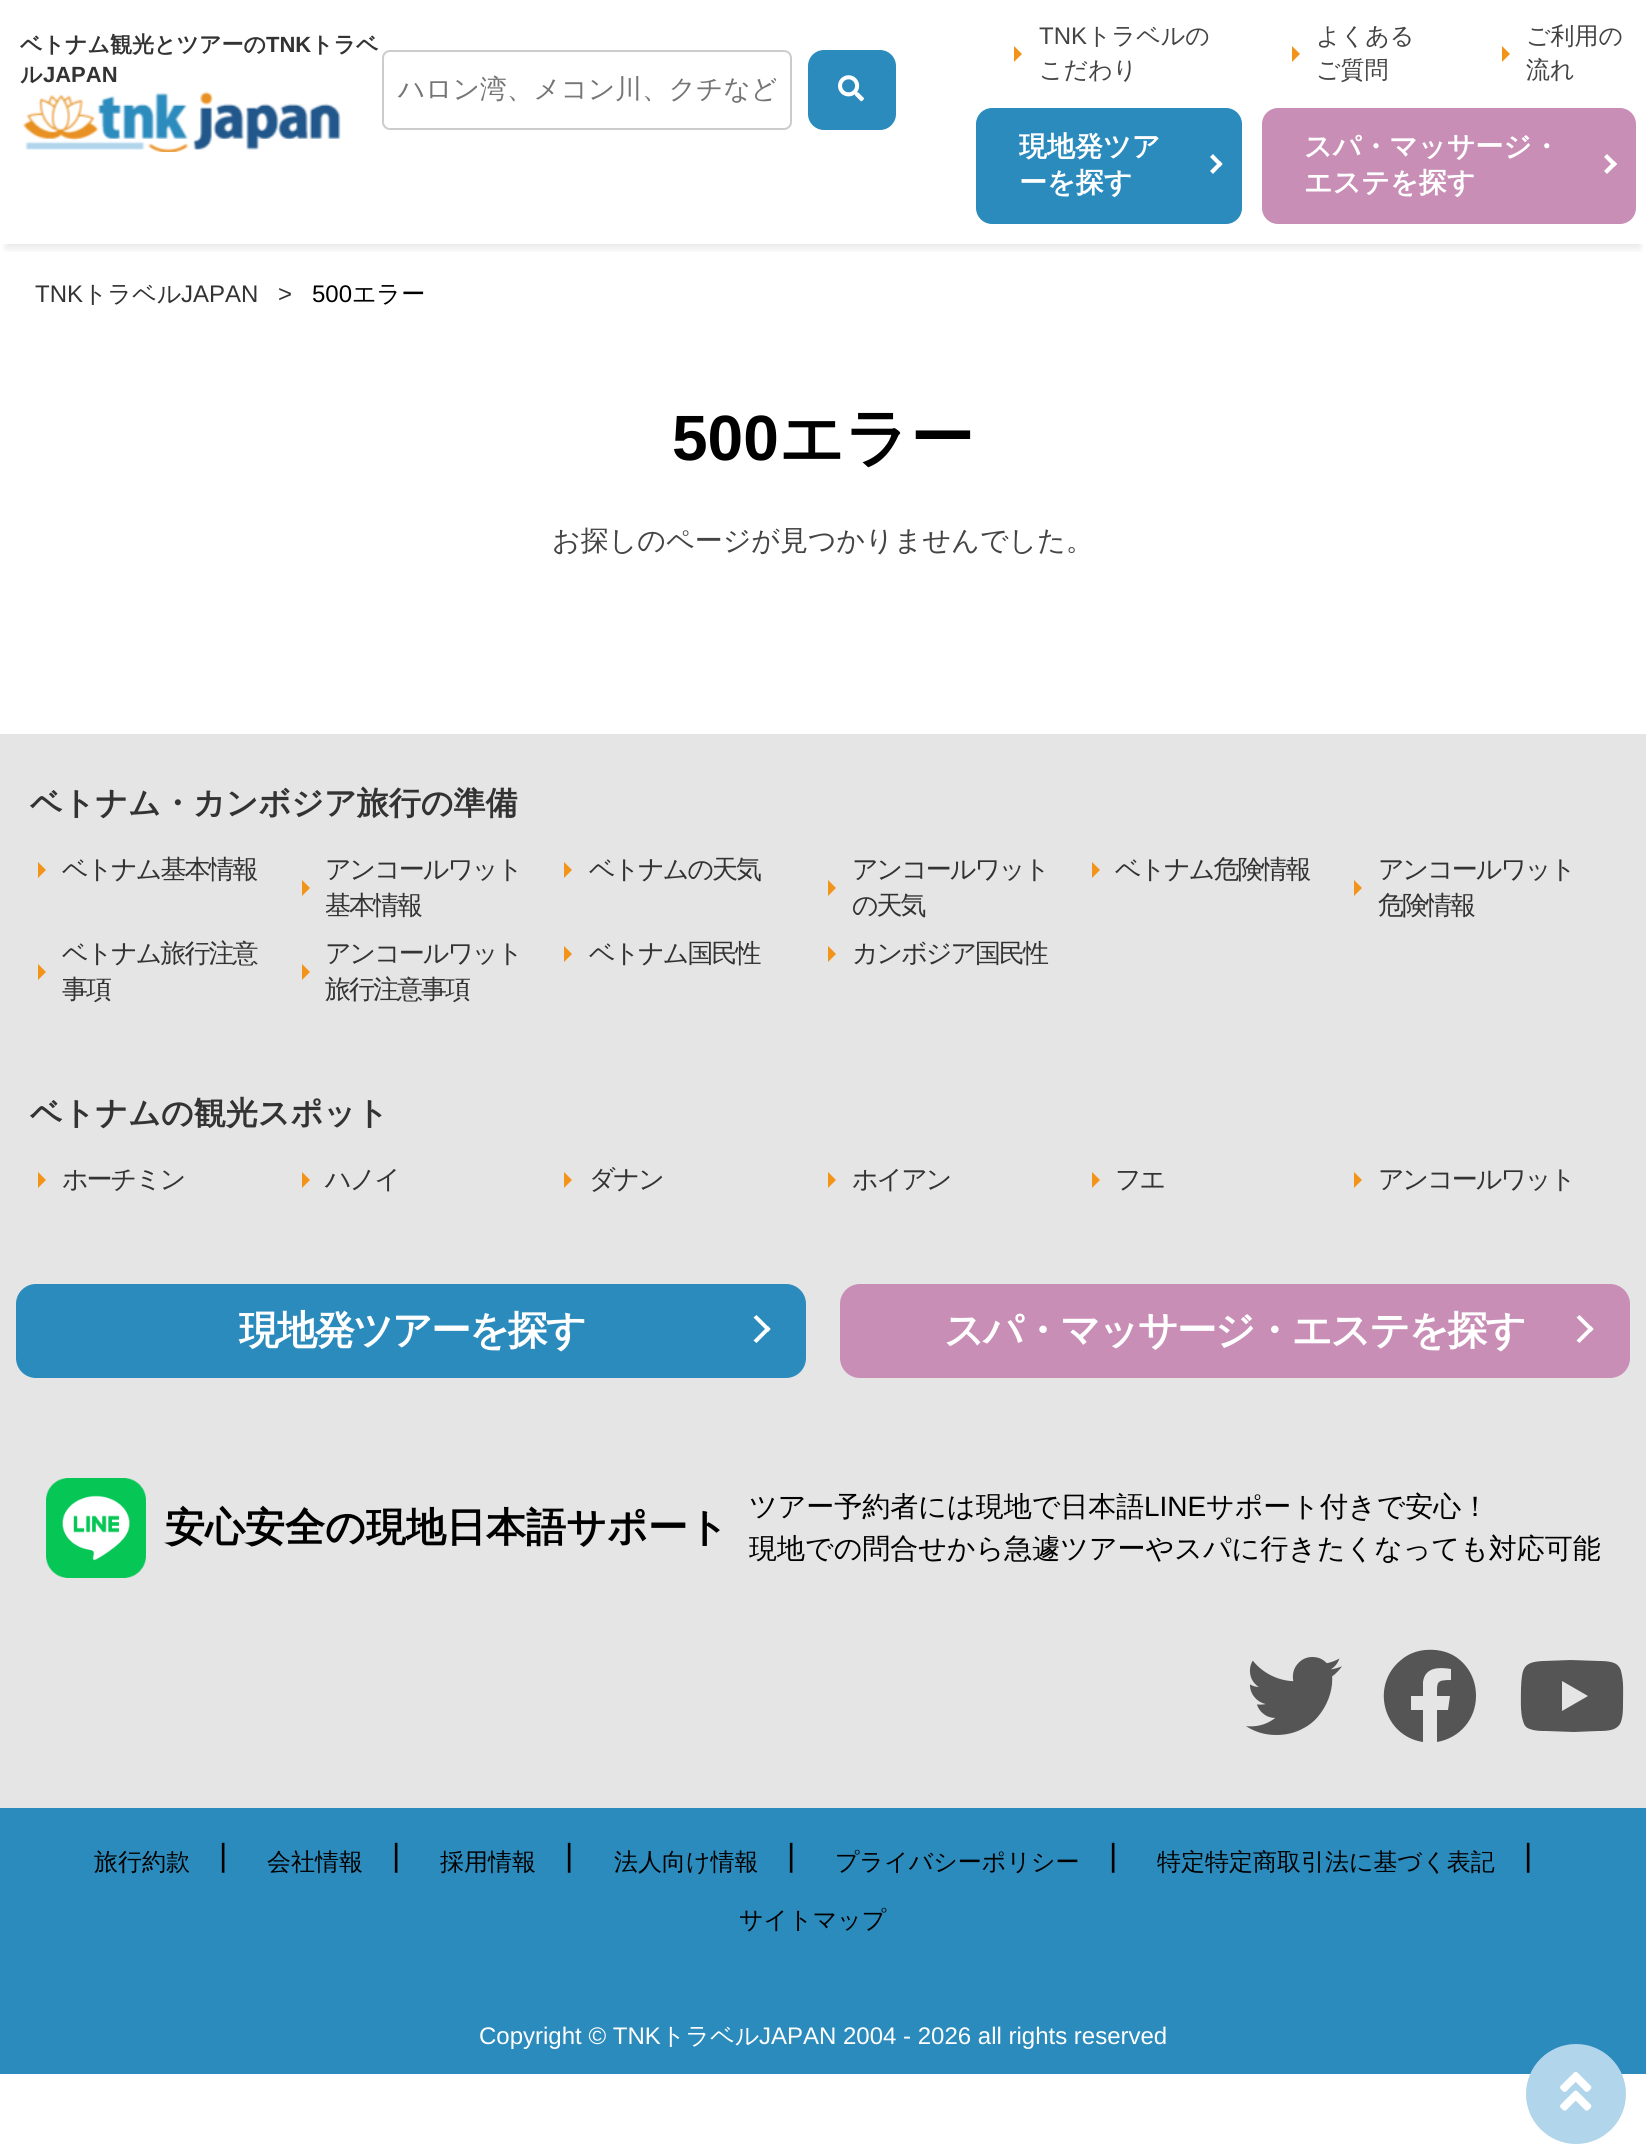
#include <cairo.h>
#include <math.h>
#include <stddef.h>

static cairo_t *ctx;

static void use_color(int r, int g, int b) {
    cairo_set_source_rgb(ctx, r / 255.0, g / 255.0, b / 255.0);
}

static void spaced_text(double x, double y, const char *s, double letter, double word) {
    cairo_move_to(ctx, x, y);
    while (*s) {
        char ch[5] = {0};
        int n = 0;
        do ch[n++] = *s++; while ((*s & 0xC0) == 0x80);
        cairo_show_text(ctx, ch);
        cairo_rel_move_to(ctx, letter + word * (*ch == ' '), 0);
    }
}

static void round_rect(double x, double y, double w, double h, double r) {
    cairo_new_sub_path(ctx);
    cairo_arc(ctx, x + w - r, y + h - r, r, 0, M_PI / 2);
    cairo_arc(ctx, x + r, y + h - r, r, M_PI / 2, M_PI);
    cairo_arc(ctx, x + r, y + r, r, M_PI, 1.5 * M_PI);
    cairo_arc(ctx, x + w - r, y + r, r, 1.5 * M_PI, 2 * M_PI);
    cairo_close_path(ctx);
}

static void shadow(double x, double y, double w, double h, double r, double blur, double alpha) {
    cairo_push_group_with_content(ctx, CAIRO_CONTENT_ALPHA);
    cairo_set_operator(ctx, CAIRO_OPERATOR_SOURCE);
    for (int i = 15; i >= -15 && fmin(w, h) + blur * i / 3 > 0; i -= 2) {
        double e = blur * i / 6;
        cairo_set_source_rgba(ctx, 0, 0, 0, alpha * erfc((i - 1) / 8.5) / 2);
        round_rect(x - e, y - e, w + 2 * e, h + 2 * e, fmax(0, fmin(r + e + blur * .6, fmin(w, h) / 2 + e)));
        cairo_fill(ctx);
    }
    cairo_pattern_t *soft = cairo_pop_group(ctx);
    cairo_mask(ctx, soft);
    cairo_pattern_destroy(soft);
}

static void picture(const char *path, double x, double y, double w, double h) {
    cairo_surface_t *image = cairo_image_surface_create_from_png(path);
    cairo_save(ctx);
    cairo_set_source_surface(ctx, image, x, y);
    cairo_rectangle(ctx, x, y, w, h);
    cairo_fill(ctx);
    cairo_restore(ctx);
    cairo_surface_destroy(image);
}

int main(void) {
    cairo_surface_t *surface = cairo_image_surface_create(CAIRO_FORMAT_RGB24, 1646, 2144);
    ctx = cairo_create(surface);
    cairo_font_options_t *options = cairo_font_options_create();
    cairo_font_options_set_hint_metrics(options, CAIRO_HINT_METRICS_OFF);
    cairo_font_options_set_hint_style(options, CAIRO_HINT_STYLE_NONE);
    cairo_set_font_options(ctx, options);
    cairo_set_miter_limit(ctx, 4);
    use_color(255, 255, 255);
    cairo_paint(ctx);
    cairo_save(ctx);
    cairo_rectangle(ctx, 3, 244, 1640, 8);
    cairo_clip(ctx);
    use_color(0, 0, 0);
    shadow(6, 16, 1634, 232, 0, 5, 0.1);
    cairo_restore(ctx);
    cairo_select_font_face(ctx, "WenQuanYi Zen Hei", CAIRO_FONT_SLANT_NORMAL, CAIRO_FONT_WEIGHT_BOLD);
    cairo_set_font_size(ctx, 22);
    use_color(51, 51, 51);
    cairo_move_to(ctx, 20, 52);
    cairo_show_text(ctx, "ベトナム観光とツアーの");
    cairo_select_font_face(ctx, "Liberation Sans", CAIRO_FONT_SLANT_NORMAL, CAIRO_FONT_WEIGHT_BOLD);
    cairo_move_to(ctx, 266, 52);
    cairo_show_text(ctx, "TNK");
    cairo_select_font_face(ctx, "WenQuanYi Zen Hei", CAIRO_FONT_SLANT_NORMAL, CAIRO_FONT_WEIGHT_BOLD);
    cairo_move_to(ctx, 311, 52);
    cairo_show_text(ctx, "トラベ");
    cairo_move_to(ctx, 20, 82);
    cairo_show_text(ctx, "ル");
    cairo_select_font_face(ctx, "Liberation Sans", CAIRO_FONT_SLANT_NORMAL, CAIRO_FONT_WEIGHT_BOLD);
    cairo_move_to(ctx, 43, 82);
    cairo_show_text(ctx, "JAPAN");
    picture("img1.png", 22, 91, 319, 61);
    cairo_select_font_face(ctx, "Liberation Sans", CAIRO_FONT_SLANT_NORMAL, CAIRO_FONT_WEIGHT_NORMAL);
    cairo_set_font_size(ctx, 24);
    use_color(68, 68, 68);
    cairo_move_to(ctx, 1039, 44);
    cairo_show_text(ctx, "TNK");
    cairo_select_font_face(ctx, "WenQuanYi Zen Hei Medium", CAIRO_FONT_SLANT_NORMAL, CAIRO_FONT_WEIGHT_NORMAL);
    cairo_move_to(ctx, 1087, 44);
    cairo_show_text(ctx, "トラベルの");
    use_color(242, 148, 25);
    cairo_new_path(ctx);
    cairo_move_to(ctx, 1014, 62);
    cairo_line_to(ctx, 1014, 46);
    cairo_line_to(ctx, 1022, 54);
    cairo_close_path(ctx);
    cairo_fill(ctx);
    use_color(68, 68, 68);
    cairo_move_to(ctx, 1039, 78);
    cairo_show_text(ctx, "こだわり");
    cairo_move_to(ctx, 1316, 44);
    cairo_show_text(ctx, "よくある");
    use_color(242, 148, 25);
    cairo_new_path(ctx);
    cairo_move_to(ctx, 1292, 62);
    cairo_line_to(ctx, 1292, 46);
    cairo_line_to(ctx, 1300, 54);
    cairo_close_path(ctx);
    cairo_fill(ctx);
    use_color(68, 68, 68);
    cairo_move_to(ctx, 1316, 78);
    cairo_show_text(ctx, "ご質問");
    cairo_move_to(ctx, 1526, 44);
    cairo_show_text(ctx, "ご利用の");
    use_color(242, 148, 25);
    cairo_new_path(ctx);
    cairo_move_to(ctx, 1502, 62);
    cairo_line_to(ctx, 1502, 46);
    cairo_line_to(ctx, 1510, 54);
    cairo_close_path(ctx);
    cairo_fill(ctx);
    use_color(68, 68, 68);
    cairo_move_to(ctx, 1526, 78);
    cairo_show_text(ctx, "流れ");
    use_color(43, 139, 189);
    round_rect(977, 109, 264, 114, 15);
    cairo_fill_preserve(ctx);
    cairo_stroke(ctx);
    cairo_select_font_face(ctx, "WenQuanYi Zen Hei", CAIRO_FONT_SLANT_NORMAL, CAIRO_FONT_WEIGHT_BOLD);
    cairo_set_font_size(ctx, 28);
    use_color(255, 255, 255);
    cairo_move_to(ctx, 1019, 156);
    cairo_show_text(ctx, "現地発ツア");
    cairo_new_path(ctx);
    cairo_move_to(ctx, 1213, 154);
    cairo_line_to(ctx, 1222.5, 164);
    cairo_line_to(ctx, 1220, 167);
    cairo_line_to(ctx, 1210, 157);
    cairo_close_path(ctx);
    cairo_fill(ctx);
    cairo_new_path(ctx);
    cairo_move_to(ctx, 1220, 161);
    cairo_line_to(ctx, 1222.5, 164);
    cairo_line_to(ctx, 1213, 174);
    cairo_line_to(ctx, 1210, 171);
    cairo_close_path(ctx);
    cairo_fill(ctx);
    cairo_move_to(ctx, 1019, 192);
    cairo_show_text(ctx, "ーを探す");
    use_color(200, 142, 181);
    round_rect(1263, 109, 372, 114, 15);
    cairo_fill_preserve(ctx);
    cairo_stroke(ctx);
    use_color(255, 255, 255);
    cairo_move_to(ctx, 1304, 156);
    cairo_show_text(ctx, "スパ・マッサージ・");
    cairo_new_path(ctx);
    cairo_move_to(ctx, 1607, 154);
    cairo_line_to(ctx, 1617, 164);
    cairo_line_to(ctx, 1614, 167);
    cairo_line_to(ctx, 1604, 157);
    cairo_close_path(ctx);
    cairo_fill(ctx);
    cairo_new_path(ctx);
    cairo_move_to(ctx, 1614, 161);
    cairo_line_to(ctx, 1617, 164);
    cairo_line_to(ctx, 1607, 174);
    cairo_line_to(ctx, 1604, 171);
    cairo_close_path(ctx);
    cairo_fill(ctx);
    cairo_move_to(ctx, 1304, 192);
    cairo_show_text(ctx, "エステを探す");
    round_rect(383, 51, 408, 78, 7);
    use_color(204, 204, 204);
    cairo_stroke(ctx);
    cairo_save(ctx);
    cairo_rectangle(ctx, 398, 72, 378, 36);
    cairo_clip(ctx);
    cairo_select_font_face(ctx, "WenQuanYi Zen Hei Medium", CAIRO_FONT_SLANT_NORMAL, CAIRO_FONT_WEIGHT_NORMAL);
    cairo_set_font_size(ctx, 26.7);
    use_color(117, 117, 117);
    cairo_move_to(ctx, 398, 98);
    cairo_show_text(ctx, "ハロン湾、メコン川、クチなど");
    cairo_restore(ctx);
    use_color(43, 139, 189);
    round_rect(808, 50, 88, 80, 16);
    cairo_fill(ctx);
    picture("img2.png", 838, 75, 26, 27);
    cairo_select_font_face(ctx, "Liberation Sans", CAIRO_FONT_SLANT_NORMAL, CAIRO_FONT_WEIGHT_NORMAL);
    cairo_set_font_size(ctx, 24);
    use_color(51, 51, 51);
    cairo_move_to(ctx, 35, 302);
    cairo_show_text(ctx, "TNK");
    cairo_select_font_face(ctx, "WenQuanYi Zen Hei Medium", CAIRO_FONT_SLANT_NORMAL, CAIRO_FONT_WEIGHT_NORMAL);
    cairo_move_to(ctx, 83, 302);
    cairo_show_text(ctx, "トラベル");
    cairo_select_font_face(ctx, "Liberation Sans", CAIRO_FONT_SLANT_NORMAL, CAIRO_FONT_WEIGHT_NORMAL);
    cairo_move_to(ctx, 181, 302);
    cairo_show_text(ctx, "JAPAN");
    cairo_move_to(ctx, 278, 302);
    cairo_show_text(ctx, ">");
    use_color(0, 0, 0);
    cairo_move_to(ctx, 312, 302);
    cairo_show_text(ctx, "500");
    cairo_select_font_face(ctx, "WenQuanYi Zen Hei Medium", CAIRO_FONT_SLANT_NORMAL, CAIRO_FONT_WEIGHT_NORMAL);
    cairo_move_to(ctx, 352, 302);
    cairo_show_text(ctx, "エラー");
    cairo_select_font_face(ctx, "Liberation Sans", CAIRO_FONT_SLANT_NORMAL, CAIRO_FONT_WEIGHT_BOLD);
    cairo_set_font_size(ctx, 64);
    cairo_move_to(ctx, 672, 460);
    cairo_show_text(ctx, "500");
    cairo_select_font_face(ctx, "WenQuanYi Zen Hei", CAIRO_FONT_SLANT_NORMAL, CAIRO_FONT_WEIGHT_BOLD);
    cairo_move_to(ctx, 779, 460);
    cairo_show_text(ctx, "エラー");
    cairo_select_font_face(ctx, "WenQuanYi Zen Hei Medium", CAIRO_FONT_SLANT_NORMAL, CAIRO_FONT_WEIGHT_NORMAL);
    cairo_set_font_size(ctx, 28);
    use_color(68, 68, 68);
    cairo_move_to(ctx, 552, 550);
    cairo_show_text(ctx, "お探しのページが見つかりませんでした。");
    use_color(229, 229, 229);
    cairo_rectangle(ctx, 0, 734, 1646, 1074);
    cairo_fill(ctx);
    cairo_select_font_face(ctx, "WenQuanYi Zen Hei", CAIRO_FONT_SLANT_NORMAL, CAIRO_FONT_WEIGHT_BOLD);
    cairo_set_font_size(ctx, 32);
    use_color(51, 51, 51);
    cairo_move_to(ctx, 30, 814);
    cairo_show_text(ctx, "ベトナム・カンボジア旅行の準備");
    use_color(242, 148, 25);
    cairo_new_path(ctx);
    cairo_move_to(ctx, 38, 878);
    cairo_line_to(ctx, 38, 862);
    cairo_line_to(ctx, 46, 870);
    cairo_close_path(ctx);
    cairo_fill(ctx);
    cairo_select_font_face(ctx, "WenQuanYi Zen Hei Medium", CAIRO_FONT_SLANT_NORMAL, CAIRO_FONT_WEIGHT_NORMAL);
    cairo_set_font_size(ctx, 26);
    use_color(51, 51, 51);
    spaced_text(62, 878, "ベトナム基本情報", -2, 0);
    use_color(242, 148, 25);
    cairo_new_path(ctx);
    cairo_move_to(ctx, 302, 896);
    cairo_line_to(ctx, 302, 880);
    cairo_line_to(ctx, 310, 888);
    cairo_close_path(ctx);
    cairo_fill(ctx);
    use_color(51, 51, 51);
    spaced_text(325, 878, "アンコールワット", -2, 0);
    spaced_text(325, 914, "基本情報", -2, 0);
    use_color(242, 148, 25);
    cairo_new_path(ctx);
    cairo_move_to(ctx, 564, 878);
    cairo_line_to(ctx, 564, 862);
    cairo_line_to(ctx, 572, 870);
    cairo_close_path(ctx);
    cairo_fill(ctx);
    use_color(51, 51, 51);
    spaced_text(589, 878, "ベトナムの天気", -2, 0);
    use_color(242, 148, 25);
    cairo_new_path(ctx);
    cairo_move_to(ctx, 828, 896);
    cairo_line_to(ctx, 828, 880);
    cairo_line_to(ctx, 836, 888);
    cairo_close_path(ctx);
    cairo_fill(ctx);
    use_color(51, 51, 51);
    spaced_text(852, 878, "アンコールワット", -2, 0);
    spaced_text(852, 914, "の天気", -2, 0);
    use_color(242, 148, 25);
    cairo_new_path(ctx);
    cairo_move_to(ctx, 1092, 878);
    cairo_line_to(ctx, 1092, 862);
    cairo_line_to(ctx, 1100, 870);
    cairo_close_path(ctx);
    cairo_fill(ctx);
    use_color(51, 51, 51);
    spaced_text(1115, 878, "ベトナム危険情報", -2, 0);
    use_color(242, 148, 25);
    cairo_new_path(ctx);
    cairo_move_to(ctx, 1354, 896);
    cairo_line_to(ctx, 1354, 880);
    cairo_line_to(ctx, 1362, 888);
    cairo_close_path(ctx);
    cairo_fill(ctx);
    use_color(51, 51, 51);
    spaced_text(1378, 878, "アンコールワット", -2, 0);
    spaced_text(1378, 914, "危険情報", -2, 0);
    use_color(242, 148, 25);
    cairo_new_path(ctx);
    cairo_move_to(ctx, 38, 980);
    cairo_line_to(ctx, 38, 964);
    cairo_line_to(ctx, 46, 972);
    cairo_close_path(ctx);
    cairo_fill(ctx);
    use_color(51, 51, 51);
    spaced_text(62, 962, "ベトナム旅行注意", -2, 0);
    spaced_text(62, 998, "事項", -2, 0);
    use_color(242, 148, 25);
    cairo_new_path(ctx);
    cairo_move_to(ctx, 302, 980);
    cairo_line_to(ctx, 302, 964);
    cairo_line_to(ctx, 310, 972);
    cairo_close_path(ctx);
    cairo_fill(ctx);
    use_color(51, 51, 51);
    spaced_text(325, 962, "アンコールワット", -2, 0);
    spaced_text(325, 998, "旅行注意事項", -2, 0);
    use_color(242, 148, 25);
    cairo_new_path(ctx);
    cairo_move_to(ctx, 564, 962);
    cairo_line_to(ctx, 564, 946);
    cairo_line_to(ctx, 572, 954);
    cairo_close_path(ctx);
    cairo_fill(ctx);
    use_color(51, 51, 51);
    spaced_text(589, 962, "ベトナム国民性", -2, 0);
    use_color(242, 148, 25);
    cairo_new_path(ctx);
    cairo_move_to(ctx, 828, 962);
    cairo_line_to(ctx, 828, 946);
    cairo_line_to(ctx, 836, 954);
    cairo_close_path(ctx);
    cairo_fill(ctx);
    use_color(51, 51, 51);
    spaced_text(852, 962, "カンボジア国民性", -2, 0);
    cairo_select_font_face(ctx, "WenQuanYi Zen Hei", CAIRO_FONT_SLANT_NORMAL, CAIRO_FONT_WEIGHT_BOLD);
    cairo_set_font_size(ctx, 32);
    cairo_move_to(ctx, 30, 1124);
    cairo_show_text(ctx, "ベトナムの観光スポット");
    use_color(242, 148, 25);
    cairo_new_path(ctx);
    cairo_move_to(ctx, 38, 1188);
    cairo_line_to(ctx, 38, 1172);
    cairo_line_to(ctx, 46, 1180);
    cairo_close_path(ctx);
    cairo_fill(ctx);
    cairo_select_font_face(ctx, "WenQuanYi Zen Hei Medium", CAIRO_FONT_SLANT_NORMAL, CAIRO_FONT_WEIGHT_NORMAL);
    cairo_set_font_size(ctx, 26);
    use_color(51, 51, 51);
    spaced_text(62, 1188, "ホーチミン", -2, 0);
    use_color(242, 148, 25);
    cairo_new_path(ctx);
    cairo_move_to(ctx, 302, 1188);
    cairo_line_to(ctx, 302, 1172);
    cairo_line_to(ctx, 310, 1180);
    cairo_close_path(ctx);
    cairo_fill(ctx);
    use_color(51, 51, 51);
    spaced_text(325, 1188, "ハノイ", -2, 0);
    use_color(242, 148, 25);
    cairo_new_path(ctx);
    cairo_move_to(ctx, 564, 1188);
    cairo_line_to(ctx, 564, 1172);
    cairo_line_to(ctx, 572, 1180);
    cairo_close_path(ctx);
    cairo_fill(ctx);
    use_color(51, 51, 51);
    spaced_text(589, 1188, "ダナン", -2, 0);
    use_color(242, 148, 25);
    cairo_new_path(ctx);
    cairo_move_to(ctx, 828, 1188);
    cairo_line_to(ctx, 828, 1172);
    cairo_line_to(ctx, 836, 1180);
    cairo_close_path(ctx);
    cairo_fill(ctx);
    use_color(51, 51, 51);
    spaced_text(852, 1188, "ホイアン", -2, 0);
    use_color(242, 148, 25);
    cairo_new_path(ctx);
    cairo_move_to(ctx, 1092, 1188);
    cairo_line_to(ctx, 1092, 1172);
    cairo_line_to(ctx, 1100, 1180);
    cairo_close_path(ctx);
    cairo_fill(ctx);
    use_color(51, 51, 51);
    spaced_text(1115, 1188, "フエ", -2, 0);
    use_color(242, 148, 25);
    cairo_new_path(ctx);
    cairo_move_to(ctx, 1354, 1188);
    cairo_line_to(ctx, 1354, 1172);
    cairo_line_to(ctx, 1362, 1180);
    cairo_close_path(ctx);
    cairo_fill(ctx);
    use_color(51, 51, 51);
    spaced_text(1378, 1188, "アンコールワット", -2, 0);
    use_color(43, 139, 189);
    round_rect(16, 1284, 790, 94, 20);
    cairo_fill(ctx);
    cairo_select_font_face(ctx, "WenQuanYi Zen Hei", CAIRO_FONT_SLANT_NORMAL, CAIRO_FONT_WEIGHT_BOLD);
    cairo_set_font_size(ctx, 40);
    use_color(255, 255, 255);
    spaced_text(239, 1344, "現地発ツアーを探す", -2, 0);
    cairo_new_path(ctx);
    cairo_move_to(ctx, 756.5, 1315);
    cairo_line_to(ctx, 770.5, 1329);
    cairo_line_to(ctx, 768, 1332);
    cairo_line_to(ctx, 753.5, 1317.5);
    cairo_close_path(ctx);
    cairo_fill(ctx);
    cairo_new_path(ctx);
    cairo_move_to(ctx, 768, 1326);
    cairo_line_to(ctx, 770.5, 1329);
    cairo_line_to(ctx, 756.5, 1343);
    cairo_line_to(ctx, 753.5, 1340.5);
    cairo_close_path(ctx);
    cairo_fill(ctx);
    use_color(200, 142, 181);
    round_rect(840, 1284, 790, 94, 20);
    cairo_fill(ctx);
    use_color(255, 255, 255);
    spaced_text(944, 1344, "スパ・マッサージ・エステを探す", -2, 0);
    cairo_new_path(ctx);
    cairo_move_to(ctx, 1579.5, 1315);
    cairo_line_to(ctx, 1593.5, 1329);
    cairo_line_to(ctx, 1591, 1332);
    cairo_line_to(ctx, 1576.5, 1317.5);
    cairo_close_path(ctx);
    cairo_fill(ctx);
    cairo_new_path(ctx);
    cairo_move_to(ctx, 1591, 1326);
    cairo_line_to(ctx, 1593.5, 1329);
    cairo_line_to(ctx, 1579.5, 1343);
    cairo_line_to(ctx, 1576.5, 1340.5);
    cairo_close_path(ctx);
    cairo_fill(ctx);
    picture("img3.png", 46, 1478, 100, 100);
    use_color(0, 0, 0);
    cairo_move_to(ctx, 165, 1541);
    cairo_show_text(ctx, "安心安全の現地日本語サポート");
    cairo_select_font_face(ctx, "WenQuanYi Zen Hei Medium", CAIRO_FONT_SLANT_NORMAL, CAIRO_FONT_WEIGHT_NORMAL);
    cairo_set_font_size(ctx, 28);
    cairo_move_to(ctx, 749, 1516);
    cairo_show_text(ctx, "ツアー予約者には現地で日本語");
    cairo_select_font_face(ctx, "Liberation Sans", CAIRO_FONT_SLANT_NORMAL, CAIRO_FONT_WEIGHT_NORMAL);
    cairo_move_to(ctx, 1144, 1516);
    cairo_show_text(ctx, "LINE");
    cairo_select_font_face(ctx, "WenQuanYi Zen Hei Medium", CAIRO_FONT_SLANT_NORMAL, CAIRO_FONT_WEIGHT_NORMAL);
    cairo_move_to(ctx, 1206, 1516);
    cairo_show_text(ctx, "サポート付きで安心！");
    cairo_move_to(ctx, 749, 1558);
    cairo_show_text(ctx, "現地での問合せから急遽ツアーやスパに行きたくなっても対応可能");
    picture("img4.png", 1246, 1657, 96, 78);
    use_color(85, 85, 85);
    cairo_new_path(ctx);
    cairo_move_to(ctx, 1476, 1696);
    cairo_curve_to(ctx, 1476, 1719, 1460, 1738, 1437, 1742);
    cairo_line_to(ctx, 1437, 1710);
    cairo_line_to(ctx, 1448, 1710);
    cairo_line_to(ctx, 1450, 1696);
    cairo_line_to(ctx, 1437, 1696);
    cairo_curve_to(ctx, 1437, 1682, 1436, 1680, 1451, 1680);
    cairo_line_to(ctx, 1451, 1669);
    cairo_curve_to(ctx, 1439, 1667, 1425, 1667, 1423, 1682);
    cairo_line_to(ctx, 1423, 1696);
    cairo_line_to(ctx, 1411, 1696);
    cairo_line_to(ctx, 1411, 1710);
    cairo_line_to(ctx, 1423, 1710);
    cairo_line_to(ctx, 1423, 1742);
    cairo_curve_to(ctx, 1383, 1736, 1370, 1685, 1401, 1660);
    cairo_curve_to(ctx, 1408, 1654, 1416, 1651, 1425, 1650);
    cairo_curve_to(ctx, 1436, 1649, 1447, 1651, 1456, 1657);
    cairo_curve_to(ctx, 1469, 1666, 1476, 1680, 1476, 1696);
    cairo_close_path(ctx);
    cairo_fill(ctx);
    cairo_new_path(ctx);
    cairo_move_to(ctx, 1621, 1671);
    cairo_curve_to(ctx, 1624, 1682, 1623, 1693, 1623, 1704);
    cairo_curve_to(ctx, 1623, 1710, 1623, 1718, 1620, 1724);
    cairo_curve_to(ctx, 1618, 1727, 1616, 1728, 1614, 1729);
    cairo_curve_to(ctx, 1609, 1731, 1603, 1731, 1598, 1731);
    cairo_line_to(ctx, 1574, 1732);
    cairo_line_to(ctx, 1546, 1731);
    cairo_curve_to(ctx, 1541, 1731, 1535, 1731, 1530, 1729);
    cairo_curve_to(ctx, 1526, 1728, 1524, 1725, 1523, 1721);
    cairo_curve_to(ctx, 1520, 1712, 1521, 1697, 1521, 1688);
    cairo_curve_to(ctx, 1522, 1668, 1523, 1662, 1543, 1661);
    cairo_line_to(ctx, 1570, 1660);
    cairo_line_to(ctx, 1598, 1661);
    cairo_curve_to(ctx, 1603, 1661, 1609, 1661, 1614, 1663);
    cairo_curve_to(ctx, 1617, 1664, 1620, 1667, 1621, 1671);
    cairo_close_path(ctx);
    cairo_move_to(ctx, 1562, 1711);
    cairo_line_to(ctx, 1588, 1696);
    cairo_line_to(ctx, 1562, 1681);
    cairo_close_path(ctx);
    cairo_fill(ctx);
    use_color(43, 139, 189);
    cairo_rectangle(ctx, 0, 1808, 1646, 266);
    cairo_fill(ctx);
    cairo_set_font_size(ctx, 24);
    use_color(0, 0, 0);
    cairo_move_to(ctx, 94, 1870);
    cairo_show_text(ctx, "旅行約款");
    cairo_select_font_face(ctx, "Liberation Sans", CAIRO_FONT_SLANT_NORMAL, CAIRO_FONT_WEIGHT_NORMAL);
    cairo_set_font_size(ctx, 32);
    cairo_move_to(ctx, 219, 1866);
    cairo_show_text(ctx, "|");
    cairo_select_font_face(ctx, "WenQuanYi Zen Hei Medium", CAIRO_FONT_SLANT_NORMAL, CAIRO_FONT_WEIGHT_NORMAL);
    cairo_set_font_size(ctx, 24);
    cairo_move_to(ctx, 267, 1870);
    cairo_show_text(ctx, "会社情報");
    cairo_select_font_face(ctx, "Liberation Sans", CAIRO_FONT_SLANT_NORMAL, CAIRO_FONT_WEIGHT_NORMAL);
    cairo_set_font_size(ctx, 32);
    cairo_move_to(ctx, 392, 1866);
    cairo_show_text(ctx, "|");
    cairo_select_font_face(ctx, "WenQuanYi Zen Hei Medium", CAIRO_FONT_SLANT_NORMAL, CAIRO_FONT_WEIGHT_NORMAL);
    cairo_set_font_size(ctx, 24);
    cairo_move_to(ctx, 440, 1870);
    cairo_show_text(ctx, "採用情報");
    cairo_select_font_face(ctx, "Liberation Sans", CAIRO_FONT_SLANT_NORMAL, CAIRO_FONT_WEIGHT_NORMAL);
    cairo_set_font_size(ctx, 32);
    cairo_move_to(ctx, 565, 1866);
    cairo_show_text(ctx, "|");
    cairo_select_font_face(ctx, "WenQuanYi Zen Hei Medium", CAIRO_FONT_SLANT_NORMAL, CAIRO_FONT_WEIGHT_NORMAL);
    cairo_set_font_size(ctx, 24);
    cairo_move_to(ctx, 614, 1870);
    cairo_show_text(ctx, "法人向け情報");
    cairo_select_font_face(ctx, "Liberation Sans", CAIRO_FONT_SLANT_NORMAL, CAIRO_FONT_WEIGHT_NORMAL);
    cairo_set_font_size(ctx, 32);
    cairo_move_to(ctx, 787, 1866);
    cairo_show_text(ctx, "|");
    cairo_select_font_face(ctx, "WenQuanYi Zen Hei Medium", CAIRO_FONT_SLANT_NORMAL, CAIRO_FONT_WEIGHT_NORMAL);
    cairo_set_font_size(ctx, 24);
    cairo_move_to(ctx, 835, 1870);
    cairo_show_text(ctx, "プライバシーポリシー");
    cairo_select_font_face(ctx, "Liberation Sans", CAIRO_FONT_SLANT_NORMAL, CAIRO_FONT_WEIGHT_NORMAL);
    cairo_set_font_size(ctx, 32);
    cairo_move_to(ctx, 1109, 1866);
    cairo_show_text(ctx, "|");
    cairo_select_font_face(ctx, "WenQuanYi Zen Hei Medium", CAIRO_FONT_SLANT_NORMAL, CAIRO_FONT_WEIGHT_NORMAL);
    cairo_set_font_size(ctx, 24);
    cairo_move_to(ctx, 1157, 1870);
    cairo_show_text(ctx, "特定特定商取引法に基づく表記");
    cairo_select_font_face(ctx, "Liberation Sans", CAIRO_FONT_SLANT_NORMAL, CAIRO_FONT_WEIGHT_NORMAL);
    cairo_set_font_size(ctx, 32);
    cairo_move_to(ctx, 1524, 1866);
    cairo_show_text(ctx, "|");
    cairo_select_font_face(ctx, "WenQuanYi Zen Hei Medium", CAIRO_FONT_SLANT_NORMAL, CAIRO_FONT_WEIGHT_NORMAL);
    cairo_set_font_size(ctx, 24);
    cairo_move_to(ctx, 739, 1928);
    cairo_show_text(ctx, "サイトマップ");
    cairo_select_font_face(ctx, "Liberation Sans", CAIRO_FONT_SLANT_NORMAL, CAIRO_FONT_WEIGHT_NORMAL);
    use_color(255, 255, 255);
    cairo_move_to(ctx, 479, 2044);
    cairo_show_text(ctx, "Copyright © TNK");
    cairo_select_font_face(ctx, "WenQuanYi Zen Hei Medium", CAIRO_FONT_SLANT_NORMAL, CAIRO_FONT_WEIGHT_NORMAL);
    cairo_move_to(ctx, 661, 2044);
    cairo_show_text(ctx, "トラベル");
    cairo_select_font_face(ctx, "Liberation Sans", CAIRO_FONT_SLANT_NORMAL, CAIRO_FONT_WEIGHT_NORMAL);
    cairo_move_to(ctx, 759, 2044);
    cairo_show_text(ctx, "JAPAN 2004 - 2026 all rights reserved");
    use_color(177, 213, 235);
    cairo_new_path(ctx);
    cairo_arc(ctx, 1576, 2094, 50, 0, 2 * M_PI);
    cairo_fill(ctx);
    picture("img5.png", 1560, 2071, 32, 40);
    cairo_surface_write_to_png(surface, "result.png");
    cairo_font_options_destroy(options);
    cairo_destroy(ctx);
    cairo_surface_destroy(surface);
    return 0;
}
